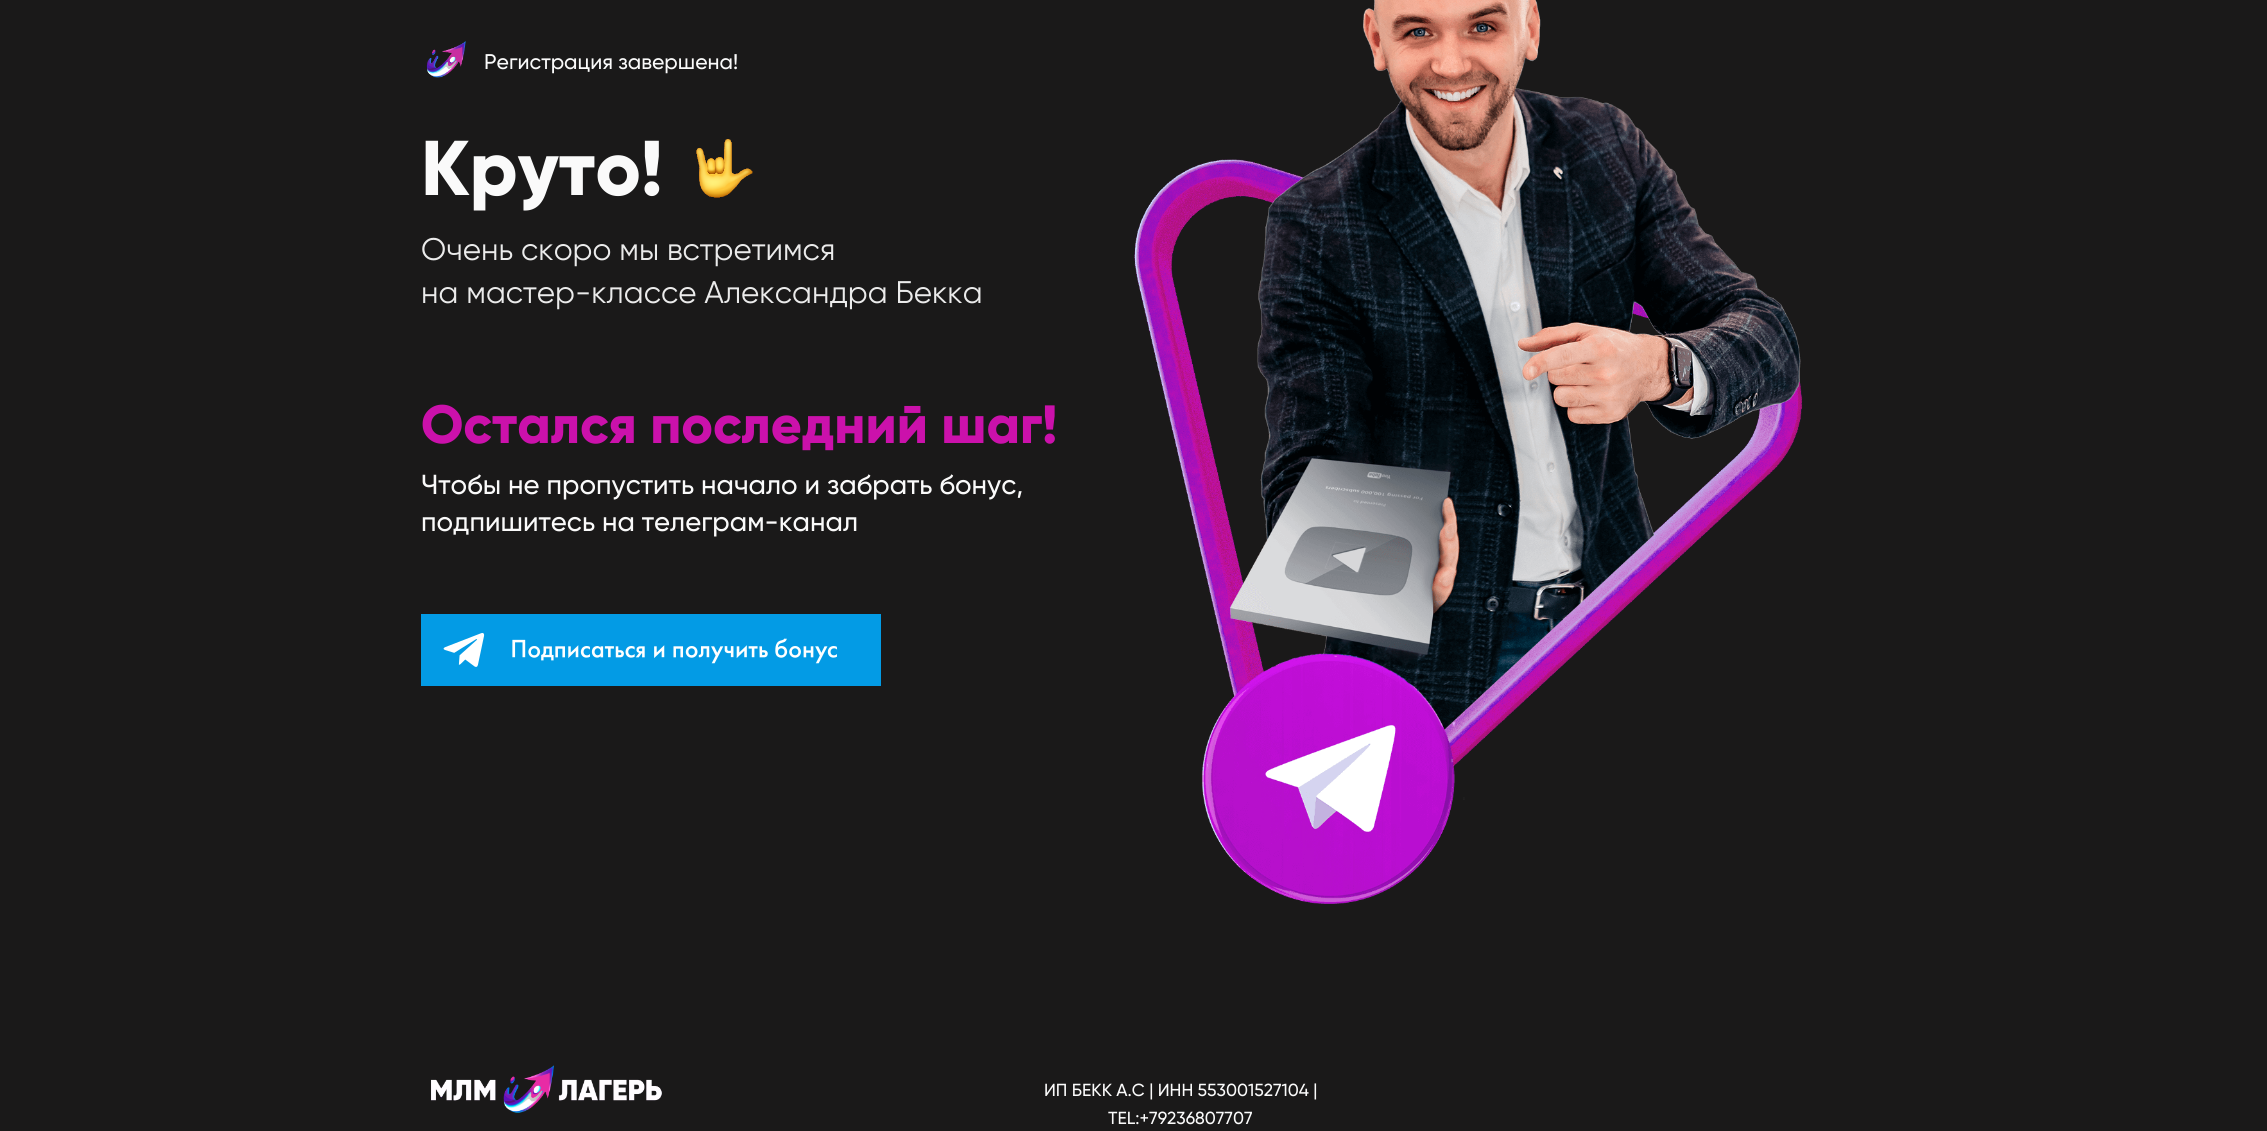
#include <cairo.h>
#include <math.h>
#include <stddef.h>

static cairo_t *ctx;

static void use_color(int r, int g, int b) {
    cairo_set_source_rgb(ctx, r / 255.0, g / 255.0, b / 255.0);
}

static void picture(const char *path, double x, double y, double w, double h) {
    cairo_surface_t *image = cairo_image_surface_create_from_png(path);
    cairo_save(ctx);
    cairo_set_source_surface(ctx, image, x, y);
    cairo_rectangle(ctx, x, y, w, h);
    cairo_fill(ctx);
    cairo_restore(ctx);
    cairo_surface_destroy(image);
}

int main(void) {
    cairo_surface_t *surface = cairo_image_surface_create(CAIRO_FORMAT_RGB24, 2267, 1131);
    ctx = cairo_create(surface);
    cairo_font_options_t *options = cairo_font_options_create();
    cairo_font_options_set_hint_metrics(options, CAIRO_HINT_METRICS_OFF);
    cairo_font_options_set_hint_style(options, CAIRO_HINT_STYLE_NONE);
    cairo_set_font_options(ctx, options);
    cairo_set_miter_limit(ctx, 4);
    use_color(26, 25, 25);
    cairo_paint(ctx);
    picture("img1.png", 426, 41, 40, 37);
    cairo_select_font_face(ctx, "Gilroy Medium", CAIRO_FONT_SLANT_NORMAL, CAIRO_FONT_WEIGHT_NORMAL);
    cairo_set_font_size(ctx, 21.25);
    use_color(250, 250, 250);
    cairo_move_to(ctx, 484, 69);
    cairo_show_text(ctx, "Регистрация завершена!");
    picture("img2.png", 1134, 0, 669, 904);
    cairo_select_font_face(ctx, "Gilroy ExtraBold", CAIRO_FONT_SLANT_NORMAL, CAIRO_FONT_WEIGHT_NORMAL);
    cairo_set_font_size(ctx, 77.5);
    cairo_move_to(ctx, 421, 195);
    cairo_show_text(ctx, "Круто!");
    picture("img3.png", 696, 139, 57, 59);
    cairo_select_font_face(ctx, "Gilroy", CAIRO_FONT_SLANT_NORMAL, CAIRO_FONT_WEIGHT_NORMAL);
    cairo_set_font_size(ctx, 31.25);
    use_color(235, 235, 235);
    cairo_move_to(ctx, 421, 260);
    cairo_show_text(ctx, "Очень скоро мы встретимся");
    cairo_move_to(ctx, 421, 303);
    cairo_show_text(ctx, "на мастер-классе Александра Бекка");
    cairo_select_font_face(ctx, "Gilroy ExtraBold", CAIRO_FONT_SLANT_NORMAL, CAIRO_FONT_WEIGHT_NORMAL);
    cairo_set_font_size(ctx, 53.75);
    use_color(203, 17, 171);
    cairo_move_to(ctx, 421, 443);
    cairo_show_text(ctx, "Остался последний шаг!");
    cairo_select_font_face(ctx, "Gilroy Medium", CAIRO_FONT_SLANT_NORMAL, CAIRO_FONT_WEIGHT_NORMAL);
    cairo_set_font_size(ctx, 27.5);
    use_color(250, 250, 250);
    cairo_move_to(ctx, 421, 494);
    cairo_show_text(ctx, "Чтобы не пропустить начало и забрать бонус,");
    cairo_move_to(ctx, 421, 531);
    cairo_show_text(ctx, "подпишитесь на телеграм-канал");
    picture("img4.png", 421, 614, 460, 72);
    picture("img5.png", 431, 1065, 231, 48);
    cairo_set_font_size(ctx, 17.5);
    cairo_move_to(ctx, 1044, 1096);
    cairo_show_text(ctx, "ИП БЕКК А.С | ИНН 553001527104 |");
    cairo_move_to(ctx, 1108, 1124);
    cairo_show_text(ctx, "TEL:+79236807707");
    cairo_surface_write_to_png(surface, "result.png");
    cairo_font_options_destroy(options);
    cairo_destroy(ctx);
    cairo_surface_destroy(surface);
    return 0;
}
